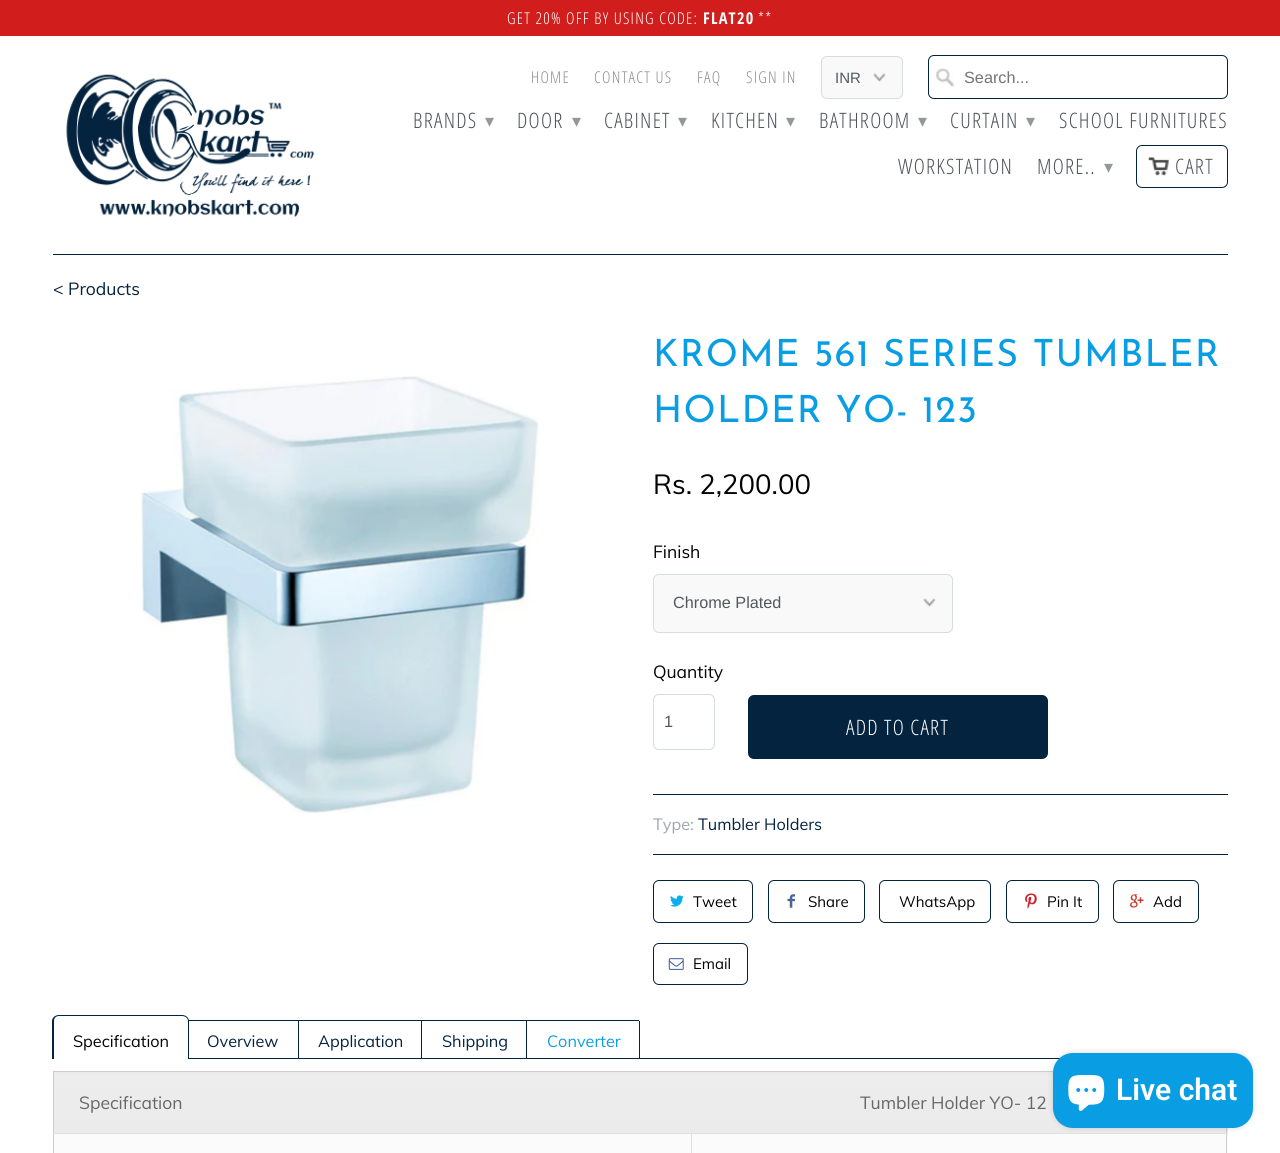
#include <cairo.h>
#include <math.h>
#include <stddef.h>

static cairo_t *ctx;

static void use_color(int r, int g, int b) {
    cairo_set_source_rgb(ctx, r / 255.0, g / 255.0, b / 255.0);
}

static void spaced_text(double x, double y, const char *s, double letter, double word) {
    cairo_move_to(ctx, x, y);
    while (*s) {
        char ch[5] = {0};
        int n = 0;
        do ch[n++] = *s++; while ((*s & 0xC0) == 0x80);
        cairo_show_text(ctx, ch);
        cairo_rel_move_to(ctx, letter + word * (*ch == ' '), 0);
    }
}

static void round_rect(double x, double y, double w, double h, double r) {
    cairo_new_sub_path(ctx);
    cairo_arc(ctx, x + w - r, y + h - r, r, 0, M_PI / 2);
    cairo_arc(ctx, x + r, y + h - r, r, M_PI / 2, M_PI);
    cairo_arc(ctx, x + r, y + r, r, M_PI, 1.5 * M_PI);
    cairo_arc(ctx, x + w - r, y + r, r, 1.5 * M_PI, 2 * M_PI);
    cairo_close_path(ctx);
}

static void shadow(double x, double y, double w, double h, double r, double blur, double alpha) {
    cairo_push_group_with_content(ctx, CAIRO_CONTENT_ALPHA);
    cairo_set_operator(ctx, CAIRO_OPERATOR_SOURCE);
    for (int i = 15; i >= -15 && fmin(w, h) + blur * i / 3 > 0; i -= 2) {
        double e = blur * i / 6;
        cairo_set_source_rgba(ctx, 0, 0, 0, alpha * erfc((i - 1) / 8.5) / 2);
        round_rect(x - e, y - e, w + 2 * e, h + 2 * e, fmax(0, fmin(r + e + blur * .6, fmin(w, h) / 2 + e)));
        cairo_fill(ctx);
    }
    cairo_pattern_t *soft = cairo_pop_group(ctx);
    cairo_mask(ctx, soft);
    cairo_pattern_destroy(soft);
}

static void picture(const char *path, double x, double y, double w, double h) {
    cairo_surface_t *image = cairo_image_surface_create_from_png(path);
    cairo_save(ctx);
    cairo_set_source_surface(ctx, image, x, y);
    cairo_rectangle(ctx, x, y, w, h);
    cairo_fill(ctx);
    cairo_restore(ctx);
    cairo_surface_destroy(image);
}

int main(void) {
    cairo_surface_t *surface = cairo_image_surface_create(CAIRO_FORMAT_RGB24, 1280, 1153);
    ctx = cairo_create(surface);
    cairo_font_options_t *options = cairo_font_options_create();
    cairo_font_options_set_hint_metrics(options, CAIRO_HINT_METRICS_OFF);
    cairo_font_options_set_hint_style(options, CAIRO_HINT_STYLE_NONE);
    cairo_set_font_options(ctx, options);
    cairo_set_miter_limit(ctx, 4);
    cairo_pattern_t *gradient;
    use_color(255, 255, 255);
    cairo_paint(ctx);
    use_color(210, 29, 29);
    cairo_rectangle(ctx, 0, 0, 1280, 36);
    cairo_fill(ctx);
    cairo_select_font_face(ctx, "Open Sans Condensed Light", CAIRO_FONT_SLANT_NORMAL, CAIRO_FONT_WEIGHT_NORMAL);
    cairo_set_font_size(ctx, 16.25);
    use_color(255, 255, 255);
    spaced_text(507, 24, "GET 20% OFF BY USING CODE:", 1.25, 0);
    cairo_select_font_face(ctx, "Open Sans Condensed", CAIRO_FONT_SLANT_NORMAL, CAIRO_FONT_WEIGHT_BOLD);
    spaced_text(703, 24, "FLAT20", 1.25, 0);
    cairo_select_font_face(ctx, "Open Sans Condensed Light", CAIRO_FONT_SLANT_NORMAL, CAIRO_FONT_WEIGHT_NORMAL);
    spaced_text(758, 24, "**", 1.25, 0);
    use_color(3, 35, 63);
    cairo_rectangle(ctx, 53, 254, 1175, 1);
    cairo_fill(ctx);
    picture("img1.png", 66, 74, 248, 143);
    use_color(141, 139, 139);
    spaced_text(531, 83, "HOME", 1.25, 0);
    spaced_text(594, 83, "CONTACT US", 1.25, 0);
    spaced_text(697, 83, "FAQ", 1.25, 0);
    spaced_text(746, 83, "SIGN IN", 1.25, 0);
    use_color(249, 249, 249);
    round_rect(821, 56, 82, 43, 6);
    cairo_fill(ctx);
    picture("img2.png", 873, 73, 13, 9);
    round_rect(821.5, 56.5, 81, 42, 5.5);
    use_color(215, 220, 222);
    cairo_set_line_width(ctx, 1);
    cairo_stroke(ctx);
    cairo_select_font_face(ctx, "Liberation Sans", CAIRO_FONT_SLANT_NORMAL, CAIRO_FONT_WEIGHT_NORMAL);
    cairo_set_font_size(ctx, 15);
    use_color(81, 89, 93);
    cairo_move_to(ctx, 835, 83);
    cairo_show_text(ctx, "INR");
    picture("img3.png", 936, 68, 18, 19);
    round_rect(928.5, 55.5, 299, 43, 5.5);
    use_color(3, 35, 63);
    cairo_stroke(ctx);
    cairo_set_font_size(ctx, 16.25);
    use_color(117, 117, 117);
    cairo_move_to(ctx, 964, 83);
    cairo_show_text(ctx, "Search...");
    cairo_select_font_face(ctx, "Open Sans Condensed Light", CAIRO_FONT_SLANT_NORMAL, CAIRO_FONT_WEIGHT_NORMAL);
    cairo_set_font_size(ctx, 21.25);
    use_color(77, 82, 86);
    spaced_text(413, 128, "BRANDS", 1.25, 0);
    cairo_select_font_face(ctx, "DejaVu Sans", CAIRO_FONT_SLANT_NORMAL, CAIRO_FONT_WEIGHT_NORMAL);
    cairo_set_font_size(ctx, 18);
    use_color(148, 151, 154);
    spaced_text(485, 127, "▾", 1.25, 0);
    cairo_select_font_face(ctx, "Open Sans Condensed Light", CAIRO_FONT_SLANT_NORMAL, CAIRO_FONT_WEIGHT_NORMAL);
    cairo_set_font_size(ctx, 21.25);
    use_color(77, 82, 86);
    spaced_text(517, 128, "DOOR", 1.25, 0);
    cairo_select_font_face(ctx, "DejaVu Sans", CAIRO_FONT_SLANT_NORMAL, CAIRO_FONT_WEIGHT_NORMAL);
    cairo_set_font_size(ctx, 18);
    use_color(148, 151, 154);
    spaced_text(572, 127, "▾", 1.25, 0);
    cairo_select_font_face(ctx, "Open Sans Condensed Light", CAIRO_FONT_SLANT_NORMAL, CAIRO_FONT_WEIGHT_NORMAL);
    cairo_set_font_size(ctx, 21.25);
    use_color(77, 82, 86);
    spaced_text(604, 128, "CABINET", 1.25, 0);
    cairo_select_font_face(ctx, "DejaVu Sans", CAIRO_FONT_SLANT_NORMAL, CAIRO_FONT_WEIGHT_NORMAL);
    cairo_set_font_size(ctx, 18);
    use_color(148, 151, 154);
    spaced_text(678, 127, "▾", 1.25, 0);
    cairo_select_font_face(ctx, "Open Sans Condensed Light", CAIRO_FONT_SLANT_NORMAL, CAIRO_FONT_WEIGHT_NORMAL);
    cairo_set_font_size(ctx, 21.25);
    use_color(77, 82, 86);
    spaced_text(711, 128, "KITCHEN", 1.25, 0);
    cairo_select_font_face(ctx, "DejaVu Sans", CAIRO_FONT_SLANT_NORMAL, CAIRO_FONT_WEIGHT_NORMAL);
    cairo_set_font_size(ctx, 18);
    use_color(148, 151, 154);
    spaced_text(786, 127, "▾", 1.25, 0);
    cairo_select_font_face(ctx, "Open Sans Condensed Light", CAIRO_FONT_SLANT_NORMAL, CAIRO_FONT_WEIGHT_NORMAL);
    cairo_set_font_size(ctx, 21.25);
    use_color(77, 82, 86);
    spaced_text(819, 128, "BATHROOM", 1.25, 0);
    cairo_select_font_face(ctx, "DejaVu Sans", CAIRO_FONT_SLANT_NORMAL, CAIRO_FONT_WEIGHT_NORMAL);
    cairo_set_font_size(ctx, 18);
    use_color(148, 151, 154);
    spaced_text(918, 127, "▾", 1.25, 0);
    cairo_select_font_face(ctx, "Open Sans Condensed Light", CAIRO_FONT_SLANT_NORMAL, CAIRO_FONT_WEIGHT_NORMAL);
    cairo_set_font_size(ctx, 21.25);
    use_color(77, 82, 86);
    spaced_text(950, 128, "CURTAIN", 1.25, 0);
    cairo_select_font_face(ctx, "DejaVu Sans", CAIRO_FONT_SLANT_NORMAL, CAIRO_FONT_WEIGHT_NORMAL);
    cairo_set_font_size(ctx, 18);
    use_color(148, 151, 154);
    spaced_text(1026, 127, "▾", 1.25, 0);
    cairo_select_font_face(ctx, "Open Sans Condensed Light", CAIRO_FONT_SLANT_NORMAL, CAIRO_FONT_WEIGHT_NORMAL);
    cairo_set_font_size(ctx, 21.25);
    use_color(77, 82, 86);
    spaced_text(1059, 128, "SCHOOL FURNITURES", 1.25, 0);
    spaced_text(898, 174, "WORKSTATION", 1.25, 0);
    spaced_text(1037, 174, "MORE..", 1.25, 0);
    cairo_select_font_face(ctx, "DejaVu Sans", CAIRO_FONT_SLANT_NORMAL, CAIRO_FONT_WEIGHT_NORMAL);
    cairo_set_font_size(ctx, 18);
    use_color(148, 151, 154);
    spaced_text(1104, 173, "▾", 1.25, 0);
    picture("img4.png", 1148, 157, 21, 19);
    round_rect(1136.5, 145.5, 91, 42, 5.5);
    use_color(3, 35, 63);
    cairo_stroke(ctx);
    cairo_select_font_face(ctx, "Open Sans Condensed Light", CAIRO_FONT_SLANT_NORMAL, CAIRO_FONT_WEIGHT_NORMAL);
    cairo_set_font_size(ctx, 21.25);
    use_color(77, 82, 86);
    spaced_text(1175, 174, "CART", 1.25, 0);
    cairo_select_font_face(ctx, "Muli", CAIRO_FONT_SLANT_NORMAL, CAIRO_FONT_WEIGHT_NORMAL);
    cairo_set_font_size(ctx, 17.5);
    use_color(3, 35, 63);
    cairo_move_to(ctx, 53, 295);
    cairo_show_text(ctx, "< Products");
    picture("img5.png", 141, 376, 398, 437);
    cairo_select_font_face(ctx, "Josefin Sans", CAIRO_FONT_SLANT_NORMAL, CAIRO_FONT_WEIGHT_NORMAL);
    cairo_set_font_size(ctx, 37.5);
    use_color(9, 158, 227);
    spaced_text(653, 366, "KROME 561 SERIES TUMBLER", 1.25, 0);
    spaced_text(653, 422, "HOLDER YO- 123", 1.25, 0);
    cairo_select_font_face(ctx, "Muli", CAIRO_FONT_SLANT_NORMAL, CAIRO_FONT_WEIGHT_NORMAL);
    cairo_set_font_size(ctx, 27.5);
    use_color(3, 1, 1);
    cairo_move_to(ctx, 653, 494);
    cairo_show_text(ctx, "Rs. 2,200.00");
    cairo_set_font_size(ctx, 17.5);
    cairo_move_to(ctx, 653, 558);
    cairo_show_text(ctx, "Finish");
    use_color(249, 249, 249);
    round_rect(653, 574, 300, 59, 6);
    cairo_fill(ctx);
    picture("img6.png", 923, 598, 13, 9);
    round_rect(653.5, 574.5, 299, 58, 5.5);
    use_color(215, 220, 222);
    cairo_stroke(ctx);
    cairo_select_font_face(ctx, "Liberation Sans", CAIRO_FONT_SLANT_NORMAL, CAIRO_FONT_WEIGHT_NORMAL);
    cairo_set_font_size(ctx, 16.25);
    use_color(81, 89, 93);
    cairo_move_to(ctx, 673, 608);
    cairo_show_text(ctx, "Chrome Plated");
    cairo_select_font_face(ctx, "Muli", CAIRO_FONT_SLANT_NORMAL, CAIRO_FONT_WEIGHT_NORMAL);
    cairo_set_font_size(ctx, 17.5);
    use_color(3, 1, 1);
    cairo_move_to(ctx, 653, 678);
    cairo_show_text(ctx, "Quantity");
    round_rect(653.5, 694.5, 61, 55, 5.5);
    use_color(215, 220, 222);
    cairo_stroke(ctx);
    cairo_select_font_face(ctx, "Liberation Sans", CAIRO_FONT_SLANT_NORMAL, CAIRO_FONT_WEIGHT_NORMAL);
    cairo_set_font_size(ctx, 16.25);
    use_color(81, 89, 93);
    cairo_move_to(ctx, 664, 727);
    cairo_show_text(ctx, "1");
    use_color(3, 35, 63);
    round_rect(748, 695, 300, 64, 6);
    cairo_fill(ctx);
    cairo_select_font_face(ctx, "Open Sans Condensed Light", CAIRO_FONT_SLANT_NORMAL, CAIRO_FONT_WEIGHT_NORMAL);
    cairo_set_font_size(ctx, 21.25);
    use_color(255, 255, 255);
    spaced_text(846, 735, "ADD TO CART", 1.25, 0);
    use_color(3, 35, 63);
    cairo_rectangle(ctx, 653, 794, 575, 1);
    cairo_fill(ctx);
    cairo_select_font_face(ctx, "Muli", CAIRO_FONT_SLANT_NORMAL, CAIRO_FONT_WEIGHT_NORMAL);
    cairo_set_font_size(ctx, 16.25);
    use_color(157, 166, 174);
    cairo_move_to(ctx, 653, 830);
    cairo_show_text(ctx, "Type:");
    use_color(3, 35, 63);
    cairo_move_to(ctx, 698, 830);
    cairo_show_text(ctx, "Tumbler Holders");
    cairo_rectangle(ctx, 653, 854, 575, 1);
    cairo_fill(ctx);
    round_rect(653.5, 880.5, 99, 42, 5.5);
    cairo_stroke(ctx);
    picture("img7.png", 670, 895, 14, 12);
    cairo_set_font_size(ctx, 15);
    use_color(3, 1, 1);
    cairo_move_to(ctx, 693, 907);
    cairo_show_text(ctx, "Tweet");
    round_rect(768.5, 880.5, 96, 42, 5.5);
    use_color(3, 35, 63);
    cairo_stroke(ctx);
    picture("img8.png", 787, 894, 8, 14);
    use_color(3, 1, 1);
    cairo_move_to(ctx, 808, 907);
    cairo_show_text(ctx, "Share");
    round_rect(879.5, 880.5, 111, 42, 5.5);
    use_color(3, 35, 63);
    cairo_stroke(ctx);
    use_color(3, 1, 1);
    cairo_move_to(ctx, 899, 907);
    cairo_show_text(ctx, "WhatsApp");
    round_rect(1006.5, 880.5, 92, 42, 5.5);
    use_color(3, 35, 63);
    cairo_stroke(ctx);
    picture("img9.png", 1025, 893, 12, 16);
    use_color(3, 1, 1);
    cairo_move_to(ctx, 1047, 907);
    cairo_show_text(ctx, "Pin It");
    round_rect(1113.5, 880.5, 85, 42, 5.5);
    use_color(3, 35, 63);
    cairo_stroke(ctx);
    picture("img10.png", 1130, 894, 14, 14);
    use_color(3, 1, 1);
    cairo_move_to(ctx, 1153, 907);
    cairo_show_text(ctx, "Add");
    round_rect(653.5, 943.5, 94, 41, 5.5);
    use_color(3, 35, 63);
    cairo_stroke(ctx);
    picture("img11.png", 668, 958, 16, 12);
    use_color(3, 1, 1);
    cairo_move_to(ctx, 693, 969);
    cairo_show_text(ctx, "Email");
    use_color(3, 35, 63);
    cairo_rectangle(ctx, 189, 1058, 871, 1);
    cairo_fill(ctx);
    cairo_rectangle(ctx, 188, 1020, 451, 1);
    cairo_fill(ctx);
    cairo_set_fill_rule(ctx, CAIRO_FILL_RULE_EVEN_ODD);
    cairo_new_path(ctx);
    cairo_move_to(ctx, 59, 1015);
    cairo_line_to(ctx, 182, 1015);
    cairo_curve_to(ctx, 186, 1015, 189, 1018, 189, 1021);
    cairo_line_to(ctx, 189, 1059);
    cairo_line_to(ctx, 52, 1059);
    cairo_line_to(ctx, 52, 1021);
    cairo_curve_to(ctx, 52, 1018, 55, 1015, 59, 1015);
    cairo_close_path(ctx);
    cairo_move_to(ctx, 59, 1016);
    cairo_line_to(ctx, 182, 1016);
    cairo_curve_to(ctx, 185, 1016, 188, 1018, 188, 1021);
    cairo_line_to(ctx, 188, 1059);
    cairo_line_to(ctx, 54, 1059);
    cairo_line_to(ctx, 54, 1021);
    cairo_curve_to(ctx, 54, 1018, 56, 1016, 59, 1016);
    cairo_close_path(ctx);
    cairo_fill(ctx);
    cairo_set_font_size(ctx, 16.25);
    use_color(3, 1, 1);
    cairo_move_to(ctx, 73, 1047);
    cairo_show_text(ctx, "Specification");
    use_color(3, 35, 63);
    cairo_move_to(ctx, 207, 1047);
    cairo_show_text(ctx, "Overview");
    cairo_rectangle(ctx, 298, 1020, 1, 38);
    cairo_fill(ctx);
    cairo_move_to(ctx, 318, 1047);
    cairo_show_text(ctx, "Application");
    cairo_rectangle(ctx, 421, 1020, 1, 38);
    cairo_fill(ctx);
    cairo_move_to(ctx, 442, 1047);
    cairo_show_text(ctx, "Shipping");
    cairo_rectangle(ctx, 639, 1021, 1, 37);
    cairo_fill(ctx);
    cairo_rectangle(ctx, 526, 1020, 1, 38);
    cairo_fill(ctx);
    use_color(9, 158, 227);
    cairo_move_to(ctx, 547, 1047);
    cairo_show_text(ctx, "Converter");
    use_color(234, 235, 236);
    cairo_rectangle(ctx, 54, 1072, 1000, 5);
    cairo_fill(ctx);
    use_color(204, 204, 204);
    cairo_rectangle(ctx, 53, 1071, 1001, 1);
    cairo_fill(ctx);
    gradient = cairo_pattern_create_linear(691, 1074, 691, 1133);
    cairo_pattern_add_color_stop_rgba(gradient, 0, 0.929, 0.929, 0.929, 1);
    cairo_pattern_add_color_stop_rgba(gradient, 1, 0.922, 0.922, 0.922, 1);
    cairo_set_source(ctx, gradient);
    cairo_pattern_destroy(gradient);
    cairo_rectangle(ctx, 691, 1074, 537, 59);
    cairo_fill(ctx);
    gradient = cairo_pattern_create_linear(693, 1134, 693, 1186);
    cairo_pattern_add_color_stop_rgba(gradient, 0, 0.984, 0.984, 0.984, 1);
    cairo_pattern_add_color_stop_rgba(gradient, 1, 0.98, 0.98, 0.98, 1);
    cairo_set_source(ctx, gradient);
    cairo_pattern_destroy(gradient);
    cairo_rectangle(ctx, 692, 1134, 536, 19);
    cairo_fill(ctx);
    use_color(204, 204, 204);
    cairo_rectangle(ctx, 1226, 1128, 1, 25);
    cairo_fill(ctx);
    cairo_rectangle(ctx, 53, 1071, 1, 82);
    cairo_fill(ctx);
    cairo_save(ctx);
    cairo_set_fill_rule(ctx, CAIRO_FILL_RULE_WINDING);
    cairo_new_path(ctx);
    cairo_move_to(ctx, 58, 1073);
    cairo_line_to(ctx, 691, 1073);
    cairo_line_to(ctx, 691, 1134);
    cairo_line_to(ctx, 54, 1134);
    cairo_line_to(ctx, 54, 1077);
    cairo_curve_to(ctx, 54, 1075, 56, 1073, 58, 1073);
    cairo_close_path(ctx);
    cairo_clip(ctx);
    gradient = cairo_pattern_create_linear(54, 1074, 54, 1133);
    cairo_pattern_add_color_stop_rgba(gradient, 0, 0.929, 0.929, 0.929, 1);
    cairo_pattern_add_color_stop_rgba(gradient, 1, 0.922, 0.922, 0.922, 1);
    cairo_set_source(ctx, gradient);
    cairo_pattern_destroy(gradient);
    cairo_rectangle(ctx, 54, 1074, 637, 59);
    cairo_fill(ctx);
    cairo_restore(ctx);
    cairo_set_font_size(ctx, 17.5);
    use_color(102, 102, 102);
    cairo_move_to(ctx, 79, 1109);
    cairo_show_text(ctx, "Specification");
    use_color(224, 224, 224);
    cairo_rectangle(ctx, 691, 1133, 1, 20);
    cairo_fill(ctx);
    cairo_rectangle(ctx, 53, 1133, 1175, 1);
    cairo_fill(ctx);
    use_color(102, 102, 102);
    cairo_move_to(ctx, 860, 1109);
    cairo_show_text(ctx, "Tumbler Holder YO- 12");
    gradient = cairo_pattern_create_linear(54, 1134, 54, 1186);
    cairo_pattern_add_color_stop_rgba(gradient, 0, 0.984, 0.984, 0.984, 1);
    cairo_pattern_add_color_stop_rgba(gradient, 1, 0.98, 0.98, 0.98, 1);
    cairo_set_source(ctx, gradient);
    cairo_pattern_destroy(gradient);
    cairo_rectangle(ctx, 54, 1134, 637, 19);
    cairo_fill(ctx);
    use_color(0, 0, 0);
    shadow(1053, 1053, 200, 75, 20, 3, 0.15);
    use_color(9, 158, 227);
    round_rect(1053, 1053, 200, 75, 20);
    cairo_fill(ctx);
    picture("img12.png", 1068, 1075, 37, 36);
    cairo_select_font_face(ctx, "Roboto SemiBold", CAIRO_FONT_SLANT_NORMAL, CAIRO_FONT_WEIGHT_NORMAL);
    cairo_set_font_size(ctx, 30);
    use_color(255, 255, 255);
    cairo_move_to(ctx, 1116, 1100);
    cairo_show_text(ctx, "Live chat");
    cairo_surface_write_to_png(surface, "result.png");
    cairo_font_options_destroy(options);
    cairo_destroy(ctx);
    cairo_surface_destroy(surface);
    return 0;
}
